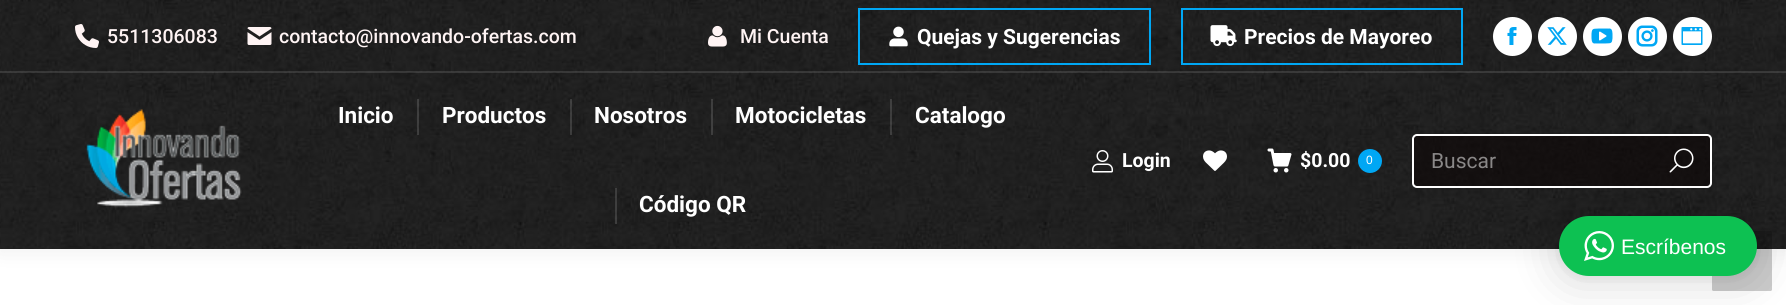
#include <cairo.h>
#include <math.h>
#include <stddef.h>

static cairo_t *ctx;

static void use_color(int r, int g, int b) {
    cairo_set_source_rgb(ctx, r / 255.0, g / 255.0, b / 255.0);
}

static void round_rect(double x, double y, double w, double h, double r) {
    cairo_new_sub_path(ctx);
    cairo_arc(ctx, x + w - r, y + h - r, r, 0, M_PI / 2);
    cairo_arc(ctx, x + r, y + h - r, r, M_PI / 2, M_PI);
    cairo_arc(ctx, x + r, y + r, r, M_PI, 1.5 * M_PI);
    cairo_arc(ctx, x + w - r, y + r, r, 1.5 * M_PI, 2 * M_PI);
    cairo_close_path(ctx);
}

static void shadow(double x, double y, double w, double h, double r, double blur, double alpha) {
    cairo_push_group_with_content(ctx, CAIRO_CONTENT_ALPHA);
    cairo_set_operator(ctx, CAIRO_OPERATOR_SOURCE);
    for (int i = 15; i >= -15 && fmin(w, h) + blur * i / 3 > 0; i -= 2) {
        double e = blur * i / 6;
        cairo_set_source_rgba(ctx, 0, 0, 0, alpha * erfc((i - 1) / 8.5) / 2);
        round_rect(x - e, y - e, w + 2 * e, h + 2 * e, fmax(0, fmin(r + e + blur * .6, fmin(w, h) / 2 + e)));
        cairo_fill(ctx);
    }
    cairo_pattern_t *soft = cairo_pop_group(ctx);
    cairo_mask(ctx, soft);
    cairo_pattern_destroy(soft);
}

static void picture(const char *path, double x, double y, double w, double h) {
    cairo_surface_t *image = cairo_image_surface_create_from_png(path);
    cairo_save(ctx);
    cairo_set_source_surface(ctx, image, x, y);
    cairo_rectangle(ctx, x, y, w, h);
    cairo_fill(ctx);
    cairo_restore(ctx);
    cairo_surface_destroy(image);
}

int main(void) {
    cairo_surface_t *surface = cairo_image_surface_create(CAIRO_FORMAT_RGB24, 1786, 305);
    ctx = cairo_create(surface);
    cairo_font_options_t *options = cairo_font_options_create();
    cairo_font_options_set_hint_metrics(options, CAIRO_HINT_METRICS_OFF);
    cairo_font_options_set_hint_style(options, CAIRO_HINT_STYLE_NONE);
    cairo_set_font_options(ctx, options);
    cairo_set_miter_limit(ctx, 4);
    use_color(255, 255, 255);
    cairo_paint(ctx);
    use_color(0, 0, 0);
    shadow(-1, -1, 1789, 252, 0, 11, 0.07);
    picture("img1.png", 0, 72, 1786, 177);
    picture("img2.png", 0, 0, 1786, 72);
    picture("img3.png", 75, 24, 24, 24);
    cairo_select_font_face(ctx, "Roboto Medium", CAIRO_FONT_SLANT_NORMAL, CAIRO_FONT_WEIGHT_NORMAL);
    cairo_set_font_size(ctx, 19.5);
    use_color(255, 244, 244);
    cairo_move_to(ctx, 107, 43);
    cairo_show_text(ctx, "5511306083");
    picture("img4.png", 247, 27, 25, 18);
    cairo_move_to(ctx, 279, 43);
    cairo_show_text(ctx, "contacto@innovando-ofertas.com");
    picture("img5.png", 708, 25, 19, 22);
    cairo_move_to(ctx, 740, 43);
    cairo_show_text(ctx, "Mi Cuenta");
    cairo_rectangle(ctx, 859, 9, 291, 55);
    use_color(0, 167, 244);
    cairo_stroke(ctx);
    picture("img6.png", 889, 26, 19, 21);
    cairo_select_font_face(ctx, "Roboto", CAIRO_FONT_SLANT_NORMAL, CAIRO_FONT_WEIGHT_BOLD);
    cairo_set_font_size(ctx, 21);
    use_color(255, 255, 255);
    cairo_move_to(ctx, 917, 44);
    cairo_show_text(ctx, "Quejas y Sugerencias");
    cairo_rectangle(ctx, 1182, 9, 280, 55);
    use_color(0, 167, 244);
    cairo_stroke(ctx);
    picture("img7.png", 1210, 25, 27, 22);
    use_color(255, 255, 255);
    cairo_move_to(ctx, 1244, 44);
    cairo_show_text(ctx, "Precios de Mayoreo");
    cairo_new_path(ctx);
    cairo_arc(ctx, 1512.5, 36.5, 19.5, 0, 2 * M_PI);
    cairo_fill(ctx);
    picture("img8.png", 1507, 27, 10, 18);
    cairo_arc(ctx, 1557.5, 36.5, 19.5, 0, 2 * M_PI);
    cairo_fill(ctx);
    picture("img9.png", 1547, 27, 20, 18);
    cairo_arc(ctx, 1602.5, 36.5, 19.5, 0, 2 * M_PI);
    cairo_fill(ctx);
    picture("img10.png", 1591, 28, 22, 16);
    cairo_arc(ctx, 1647.5, 36.5, 19.5, 0, 2 * M_PI);
    cairo_fill(ctx);
    picture("img11.png", 1636, 25, 22, 22);
    cairo_arc(ctx, 1692.5, 36.5, 19.5, 0, 2 * M_PI);
    cairo_fill(ctx);
    picture("img12.png", 1681, 27, 22, 18);
    cairo_set_source_rgba(ctx, 1, 1, 1, 0.12);
    cairo_rectangle(ctx, 0, 71, 1786, 2);
    cairo_fill(ctx);
    picture("img13.png", 86, 109, 156, 99);
    cairo_set_font_size(ctx, 22.5);
    use_color(255, 255, 255);
    cairo_move_to(ctx, 338, 123);
    cairo_show_text(ctx, "Inicio");
    cairo_set_source_rgba(ctx, 1, 1, 1, 0.14);
    cairo_rectangle(ctx, 417, 99, 2, 36);
    cairo_fill(ctx);
    use_color(255, 255, 255);
    cairo_move_to(ctx, 442, 123);
    cairo_show_text(ctx, "Productos");
    cairo_set_source_rgba(ctx, 1, 1, 1, 0.14);
    cairo_rectangle(ctx, 570, 99, 2, 36);
    cairo_fill(ctx);
    use_color(255, 255, 255);
    cairo_move_to(ctx, 594, 123);
    cairo_show_text(ctx, "Nosotros");
    cairo_set_source_rgba(ctx, 1, 1, 1, 0.14);
    cairo_rectangle(ctx, 711, 99, 2, 36);
    cairo_fill(ctx);
    use_color(255, 255, 255);
    cairo_move_to(ctx, 735, 123);
    cairo_show_text(ctx, "Motocicletas");
    cairo_set_source_rgba(ctx, 1, 1, 1, 0.14);
    cairo_rectangle(ctx, 890, 99, 2, 36);
    cairo_fill(ctx);
    use_color(255, 255, 255);
    cairo_move_to(ctx, 915, 123);
    cairo_show_text(ctx, "Catalogo");
    cairo_set_source_rgba(ctx, 1, 1, 1, 0.14);
    cairo_rectangle(ctx, 615, 188, 2, 36);
    cairo_fill(ctx);
    use_color(255, 255, 255);
    cairo_move_to(ctx, 639, 212);
    cairo_show_text(ctx, "Código QR");
    picture("img14.png", 1092, 150, 21, 23);
    cairo_set_font_size(ctx, 19.5);
    cairo_move_to(ctx, 1122, 167);
    cairo_show_text(ctx, "Login");
    picture("img15.png", 1203, 150, 24, 21);
    picture("img16.png", 1267, 148, 25, 25);
    cairo_move_to(ctx, 1300, 167);
    cairo_show_text(ctx, "$0.00");
    use_color(0, 167, 244);
    cairo_new_path(ctx);
    cairo_arc(ctx, 1370, 161, 12, 0, 2 * M_PI);
    cairo_fill(ctx);
    cairo_select_font_face(ctx, "Liberation Sans", CAIRO_FONT_SLANT_NORMAL, CAIRO_FONT_WEIGHT_NORMAL);
    cairo_set_font_size(ctx, 12);
    use_color(255, 255, 255);
    cairo_move_to(ctx, 1366, 164);
    cairo_show_text(ctx, "0");
    cairo_set_source_rgba(ctx, 0.039, 0.004, 0.004, 0.5);
    round_rect(1413, 135, 298, 52, 4);
    cairo_fill_preserve(ctx);
    use_color(255, 255, 255);
    cairo_stroke(ctx);
    cairo_select_font_face(ctx, "Roboto", CAIRO_FONT_SLANT_NORMAL, CAIRO_FONT_WEIGHT_NORMAL);
    cairo_set_font_size(ctx, 21);
    use_color(138, 136, 136);
    cairo_move_to(ctx, 1431, 168);
    cairo_show_text(ctx, "Buscar");
    picture("img17.png", 1669, 148, 25, 25);
    cairo_set_source_rgba(ctx, 0, 0, 0, 0.2);
    round_rect(1712, 231, 60, 60, 1.5);
    cairo_fill(ctx);
    picture("img19.png", 1740, 270, 4, 3);
    use_color(0, 0, 0);
    shadow(1559, 219, 198, 60, 30, 24, 0.16);
    shadow(1559, 218, 198, 60, 30, 4.5, 0.06);
    use_color(13, 193, 82);
    round_rect(1559, 216, 198, 60, 30);
    cairo_fill(ctx);
    picture("img18.png", 1584, 231, 30, 30);
    cairo_select_font_face(ctx, "Liberation Sans", CAIRO_FONT_SLANT_NORMAL, CAIRO_FONT_WEIGHT_NORMAL);
    use_color(255, 255, 255);
    cairo_move_to(ctx, 1621, 254);
    cairo_show_text(ctx, "Escríbenos");
    cairo_surface_write_to_png(surface, "result.png");
    cairo_font_options_destroy(options);
    cairo_destroy(ctx);
    cairo_surface_destroy(surface);
    return 0;
}
